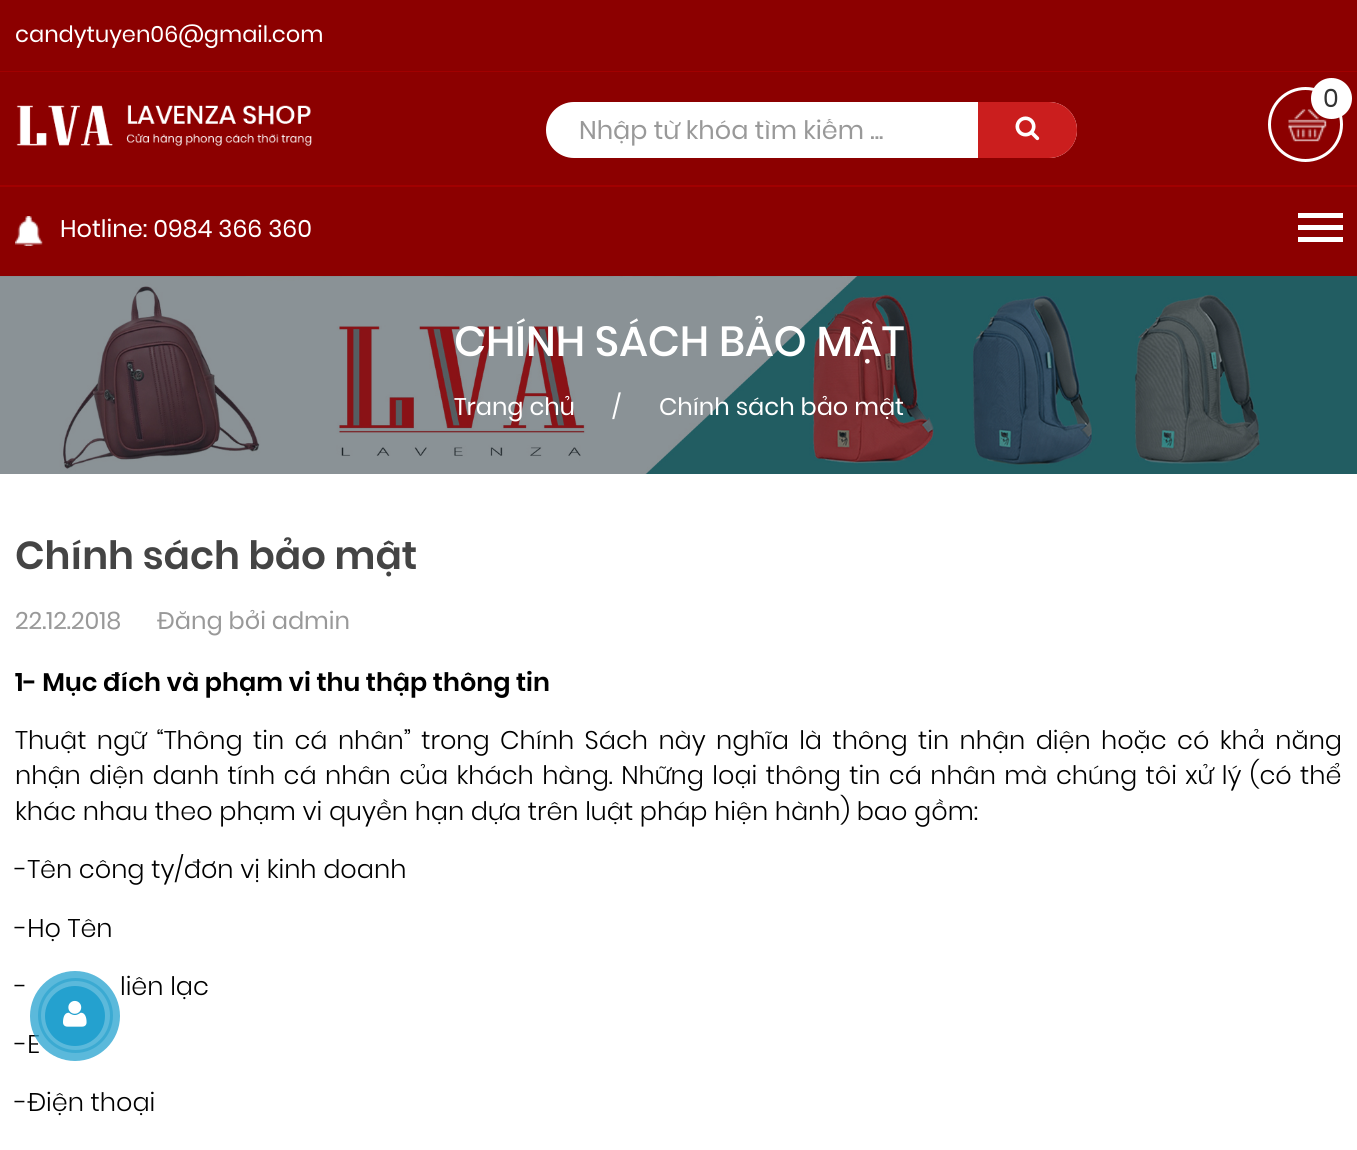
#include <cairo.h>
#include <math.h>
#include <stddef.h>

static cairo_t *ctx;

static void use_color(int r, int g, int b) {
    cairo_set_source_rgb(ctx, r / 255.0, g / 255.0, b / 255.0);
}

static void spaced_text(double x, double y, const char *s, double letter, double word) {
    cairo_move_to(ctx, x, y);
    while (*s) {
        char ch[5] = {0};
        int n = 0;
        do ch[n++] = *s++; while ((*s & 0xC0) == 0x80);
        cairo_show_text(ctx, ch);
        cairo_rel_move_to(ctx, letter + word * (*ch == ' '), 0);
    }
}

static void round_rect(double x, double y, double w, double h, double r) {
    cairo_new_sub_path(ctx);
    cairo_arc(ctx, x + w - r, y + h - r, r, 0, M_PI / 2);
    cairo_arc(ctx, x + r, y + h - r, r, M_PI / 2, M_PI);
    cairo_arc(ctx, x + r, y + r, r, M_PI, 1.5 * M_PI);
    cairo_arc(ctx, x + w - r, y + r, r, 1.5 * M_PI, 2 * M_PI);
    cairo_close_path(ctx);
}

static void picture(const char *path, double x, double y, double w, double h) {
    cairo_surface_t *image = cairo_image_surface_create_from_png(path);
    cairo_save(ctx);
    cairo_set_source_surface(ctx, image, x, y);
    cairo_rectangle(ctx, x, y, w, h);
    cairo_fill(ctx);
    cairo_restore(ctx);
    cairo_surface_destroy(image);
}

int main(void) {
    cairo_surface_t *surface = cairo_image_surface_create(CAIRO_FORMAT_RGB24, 1357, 1150);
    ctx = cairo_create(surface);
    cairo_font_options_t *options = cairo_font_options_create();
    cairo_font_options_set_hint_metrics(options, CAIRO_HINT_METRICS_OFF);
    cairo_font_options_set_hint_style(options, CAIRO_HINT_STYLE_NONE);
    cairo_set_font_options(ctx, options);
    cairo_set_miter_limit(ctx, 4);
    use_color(255, 255, 255);
    cairo_paint(ctx);
    use_color(140, 0, 0);
    cairo_rectangle(ctx, 0, 0, 1357, 71);
    cairo_fill(ctx);
    use_color(161, 0, 0);
    cairo_rectangle(ctx, 0, 71, 1357, 1);
    cairo_fill(ctx);
    cairo_select_font_face(ctx, "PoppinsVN", CAIRO_FONT_SLANT_NORMAL, CAIRO_FONT_WEIGHT_NORMAL);
    cairo_set_font_size(ctx, 22.5);
    use_color(255, 255, 255);
    cairo_move_to(ctx, 15, 42);
    cairo_show_text(ctx, "candytuyen06@gmail.com");
    use_color(140, 0, 0);
    cairo_rectangle(ctx, 0, 72, 1357, 204);
    cairo_fill(ctx);
    picture("img1.png", 1288, 109, 39, 33);
    cairo_arc(ctx, 1305.5, 124.5, 36, 0, 2 * M_PI);
    use_color(255, 255, 255);
    cairo_set_line_width(ctx, 3);
    cairo_stroke(ctx);
    cairo_arc(ctx, 1331.5, 98.5, 20.5, 0, 2 * M_PI);
    cairo_fill(ctx);
    cairo_set_font_size(ctx, 25.5);
    use_color(51, 51, 51);
    cairo_move_to(ctx, 1323, 107);
    cairo_show_text(ctx, "0");
    picture("img2.png", 16, 105, 296, 41);
    use_color(255, 255, 255);
    round_rect(547, 103, 529, 54, 27);
    cairo_fill_preserve(ctx);
    cairo_set_line_width(ctx, 2);
    cairo_stroke(ctx);
    cairo_save(ctx);
    cairo_rectangle(ctx, 579, 119, 383, 30);
    cairo_clip(ctx);
    use_color(153, 153, 153);
    cairo_move_to(ctx, 579, 139);
    cairo_show_text(ctx, "Nhập từ khóa tìm kiếm ...");
    cairo_restore(ctx);
    use_color(203, 30, 30);
    cairo_new_path(ctx);
    cairo_move_to(ctx, 978, 102);
    cairo_line_to(ctx, 1049, 102);
    cairo_curve_to(ctx, 1064.5, 102, 1077, 114.5, 1077, 130);
    cairo_curve_to(ctx, 1077, 145.5, 1064.5, 158, 1049, 158);
    cairo_line_to(ctx, 978, 158);
    cairo_close_path(ctx);
    cairo_fill(ctx);
    picture("img3.png", 1015, 116, 25, 25);
    use_color(161, 0, 0);
    cairo_rectangle(ctx, 0, 185, 1357, 2);
    cairo_fill(ctx);
    picture("img4.png", 15, 216, 28, 30);
    cairo_set_font_size(ctx, 24);
    use_color(255, 255, 255);
    cairo_move_to(ctx, 60, 237);
    cairo_show_text(ctx, "Hotline: 0984 366 360");
    cairo_rectangle(ctx, 1298, 213, 45, 5);
    cairo_fill(ctx);
    cairo_rectangle(ctx, 1298, 225, 45, 5);
    cairo_fill(ctx);
    cairo_rectangle(ctx, 1298, 237, 45, 5);
    cairo_fill(ctx);
    picture("img5.png", 0, 276, 1357, 198);
    cairo_select_font_face(ctx, "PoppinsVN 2", CAIRO_FONT_SLANT_NORMAL, CAIRO_FONT_WEIGHT_NORMAL);
    cairo_set_font_size(ctx, 42);
    cairo_move_to(ctx, 454, 356);
    cairo_show_text(ctx, "CHÍNH SÁCH BẢO MẬT");
    cairo_select_font_face(ctx, "PoppinsVN", CAIRO_FONT_SLANT_NORMAL, CAIRO_FONT_WEIGHT_NORMAL);
    cairo_set_font_size(ctx, 24);
    cairo_move_to(ctx, 454, 415);
    cairo_show_text(ctx, "Trang chủ");
    cairo_move_to(ctx, 612, 415);
    cairo_show_text(ctx, "/");
    cairo_move_to(ctx, 659, 415);
    cairo_show_text(ctx, "Chính sách bảo mật");
    cairo_select_font_face(ctx, "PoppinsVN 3", CAIRO_FONT_SLANT_NORMAL, CAIRO_FONT_WEIGHT_NORMAL);
    cairo_set_font_size(ctx, 39);
    use_color(68, 68, 68);
    cairo_move_to(ctx, 15, 569);
    cairo_show_text(ctx, "Chính sách bảo mật");
    cairo_select_font_face(ctx, "PoppinsVN", CAIRO_FONT_SLANT_NORMAL, CAIRO_FONT_WEIGHT_NORMAL);
    cairo_set_font_size(ctx, 24);
    use_color(153, 153, 153);
    cairo_move_to(ctx, 15, 629);
    cairo_show_text(ctx, "22.12.2018");
    cairo_move_to(ctx, 157, 629);
    cairo_show_text(ctx, "Đăng bởi admin");
    cairo_select_font_face(ctx, "PoppinsVN 3", CAIRO_FONT_SLANT_NORMAL, CAIRO_FONT_WEIGHT_NORMAL);
    cairo_set_font_size(ctx, 25.5);
    use_color(0, 0, 0);
    cairo_move_to(ctx, 15, 691);
    cairo_show_text(ctx, "1- Mục đích và phạm vi thu thập thông tin");
    cairo_select_font_face(ctx, "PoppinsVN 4", CAIRO_FONT_SLANT_NORMAL, CAIRO_FONT_WEIGHT_NORMAL);
    spaced_text(15, 749, "Thuật ngữ “Thông tin cá nhân” trong Chính Sách này nghĩa là thông tin nhận diện hoặc có khả năng", 0, 3.75);
    spaced_text(15, 784, "nhận diện danh tính cá nhân của khách hàng. Những loại thông tin cá nhân mà chúng tôi xử lý (có thể", 0, 1.75);
    cairo_move_to(ctx, 15, 820);
    cairo_show_text(ctx, "khác nhau theo phạm vi quyền hạn dựa trên luật pháp hiện hành) bao gồm:");
    cairo_move_to(ctx, 15, 878);
    cairo_show_text(ctx, "-Tên công ty/đơn vị kinh doanh");
    cairo_move_to(ctx, 15, 937);
    cairo_show_text(ctx, "-Họ Tên");
    cairo_move_to(ctx, 15, 995);
    cairo_show_text(ctx, "-");
    cairo_move_to(ctx, 120, 995);
    cairo_show_text(ctx, "liên lạc");
    cairo_move_to(ctx, 15, 1053);
    cairo_show_text(ctx, "-E");
    cairo_move_to(ctx, 15, 1111);
    cairo_show_text(ctx, "-Điện thoại");
    cairo_new_path(ctx);
    cairo_arc(ctx, 75.5, 1015.5, 36, 0, 2 * M_PI);
    cairo_set_source_rgba(ctx, 0, 0.537, 0.725, 0.5);
    cairo_set_line_width(ctx, 3);
    cairo_stroke(ctx);
    cairo_set_source_rgba(ctx, 0.141, 0.631, 0.812, 0.75);
    cairo_arc(ctx, 75, 1016, 45, 0, 2 * M_PI);
    cairo_fill(ctx);
    use_color(36, 161, 207);
    cairo_arc(ctx, 75, 1016, 30, 0, 2 * M_PI);
    cairo_fill(ctx);
    picture("img6.png", 63, 1000, 24, 27);
    cairo_surface_write_to_png(surface, "result.png");
    cairo_font_options_destroy(options);
    cairo_destroy(ctx);
    cairo_surface_destroy(surface);
    return 0;
}
